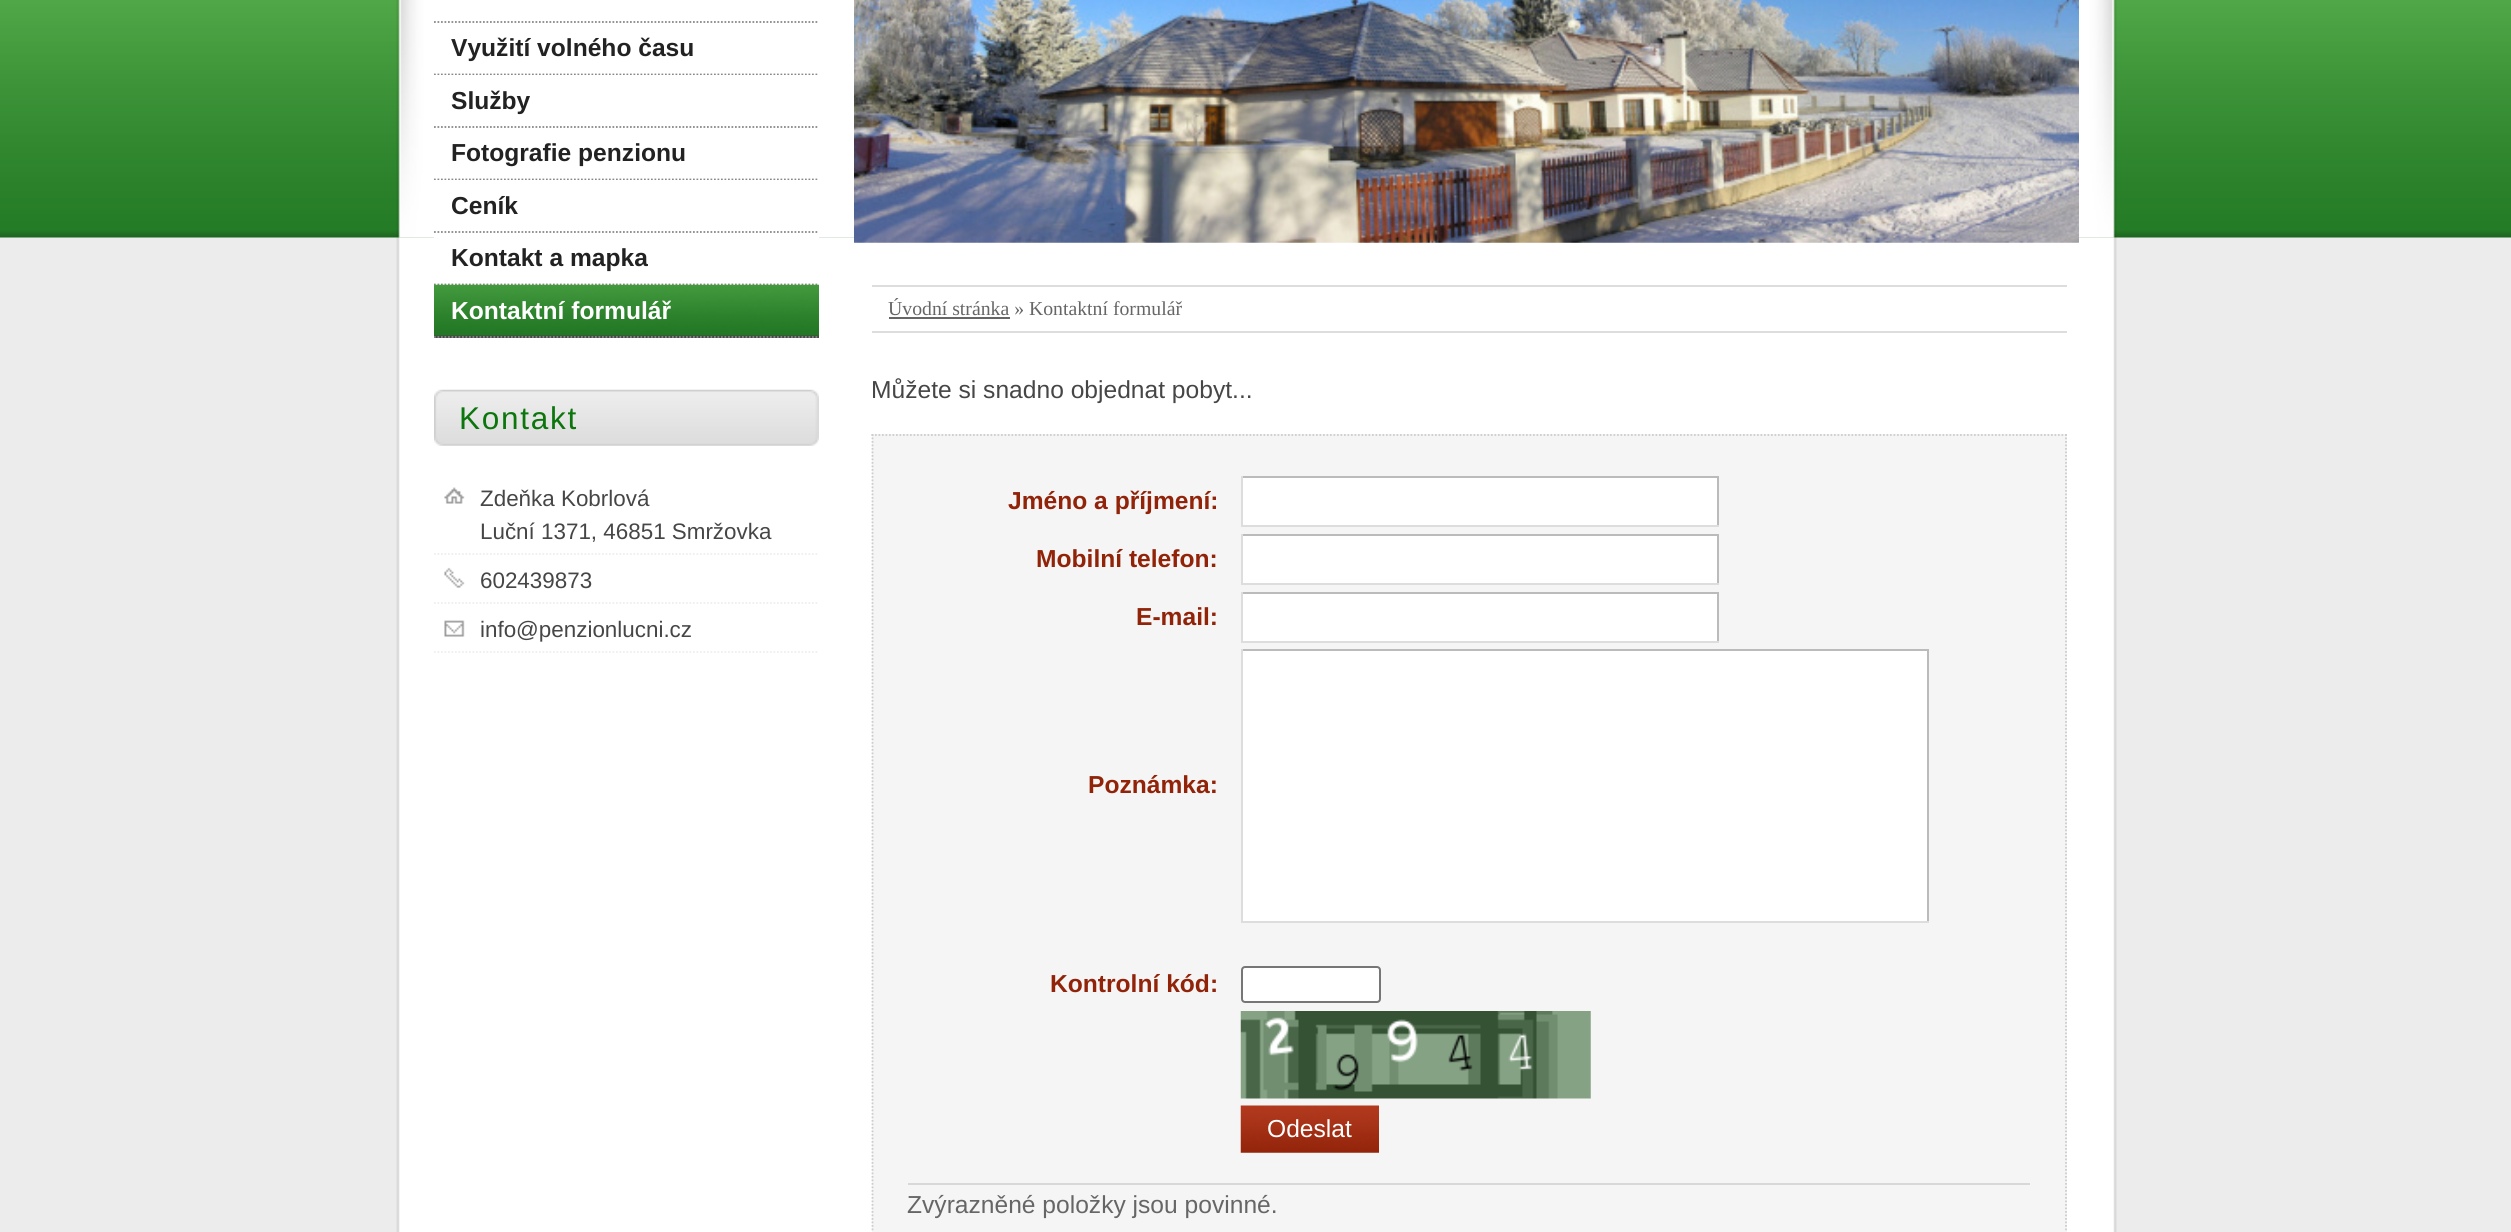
#include <cairo.h>
#include <math.h>
#include <stddef.h>

static cairo_t *ctx;

static void use_color(int r, int g, int b) {
    cairo_set_source_rgb(ctx, r / 255.0, g / 255.0, b / 255.0);
}

static void spaced_text(double x, double y, const char *s, double letter, double word) {
    cairo_move_to(ctx, x, y);
    while (*s) {
        char ch[5] = {0};
        int n = 0;
        do ch[n++] = *s++; while ((*s & 0xC0) == 0x80);
        cairo_show_text(ctx, ch);
        cairo_rel_move_to(ctx, letter + word * (*ch == ' '), 0);
    }
}

static void round_rect(double x, double y, double w, double h, double r) {
    cairo_new_sub_path(ctx);
    cairo_arc(ctx, x + w - r, y + h - r, r, 0, M_PI / 2);
    cairo_arc(ctx, x + r, y + h - r, r, M_PI / 2, M_PI);
    cairo_arc(ctx, x + r, y + r, r, M_PI, 1.5 * M_PI);
    cairo_arc(ctx, x + w - r, y + r, r, 1.5 * M_PI, 2 * M_PI);
    cairo_close_path(ctx);
}

static void picture(const char *path, double x, double y, double w, double h) {
    cairo_surface_t *image = cairo_image_surface_create_from_png(path);
    cairo_save(ctx);
    cairo_set_source_surface(ctx, image, x, y);
    cairo_rectangle(ctx, x, y, w, h);
    cairo_fill(ctx);
    cairo_restore(ctx);
    cairo_surface_destroy(image);
}

int main(void) {
    cairo_surface_t *surface = cairo_image_surface_create(CAIRO_FORMAT_RGB24, 2511, 1232);
    ctx = cairo_create(surface);
    cairo_font_options_t *options = cairo_font_options_create();
    cairo_font_options_set_hint_metrics(options, CAIRO_HINT_METRICS_OFF);
    cairo_font_options_set_hint_style(options, CAIRO_HINT_STYLE_NONE);
    cairo_set_font_options(ctx, options);
    cairo_set_miter_limit(ctx, 4);
    use_color(236, 236, 236);
    cairo_paint(ctx);
    picture("img1.png", 0, 0, 2511, 238);
    picture("img2.png", 396, 237, 1721, 995);
    picture("img3.png", 396, 0, 458, 238);
    cairo_new_path(ctx);
    cairo_move_to(ctx, 434, 22);
    cairo_line_to(ctx, 819, 22);
    use_color(136, 136, 136);
    cairo_set_line_width(ctx, 1.8);
    cairo_set_dash(ctx, (double[]){1.75, 1.75}, 2, 0);
    cairo_stroke(ctx);
    cairo_new_path(ctx);
    cairo_move_to(ctx, 434, 74.5);
    cairo_line_to(ctx, 819, 74.5);
    cairo_stroke(ctx);
    cairo_select_font_face(ctx, "Liberation Sans", CAIRO_FONT_SLANT_NORMAL, CAIRO_FONT_WEIGHT_BOLD);
    cairo_set_font_size(ctx, 24.6);
    use_color(34, 34, 34);
    cairo_move_to(ctx, 451, 56);
    cairo_show_text(ctx, "Využití volného času");
    use_color(255, 255, 255);
    cairo_rectangle(ctx, 434, 75, 384, 1);
    cairo_fill(ctx);
    cairo_new_path(ctx);
    cairo_move_to(ctx, 434, 127);
    cairo_line_to(ctx, 819, 127);
    use_color(136, 136, 136);
    cairo_stroke(ctx);
    use_color(34, 34, 34);
    cairo_move_to(ctx, 451, 109);
    cairo_show_text(ctx, "Služby");
    cairo_new_path(ctx);
    cairo_move_to(ctx, 434, 179.5);
    cairo_line_to(ctx, 819, 179.5);
    use_color(136, 136, 136);
    cairo_stroke(ctx);
    use_color(34, 34, 34);
    cairo_move_to(ctx, 451, 161);
    cairo_show_text(ctx, "Fotografie penzionu");
    use_color(255, 255, 255);
    cairo_rectangle(ctx, 434, 180, 384, 1);
    cairo_fill(ctx);
    cairo_new_path(ctx);
    cairo_move_to(ctx, 434, 232);
    cairo_line_to(ctx, 819, 232);
    use_color(136, 136, 136);
    cairo_stroke(ctx);
    use_color(34, 34, 34);
    cairo_move_to(ctx, 451, 214);
    cairo_show_text(ctx, "Ceník");
    use_color(255, 255, 255);
    cairo_rectangle(ctx, 434, 237, 385, 1);
    cairo_fill(ctx);
    cairo_new_path(ctx);
    cairo_move_to(ctx, 434, 284.5);
    cairo_line_to(ctx, 819, 284.5);
    use_color(136, 136, 136);
    cairo_stroke(ctx);
    use_color(34, 34, 34);
    cairo_move_to(ctx, 451, 266);
    cairo_show_text(ctx, "Kontakt a mapka");
    use_color(70, 70, 70);
    cairo_rectangle(ctx, 434, 335, 385, 3);
    cairo_fill(ctx);
    picture("img4.png", 434, 284, 385, 52);
    cairo_new_path(ctx);
    cairo_move_to(ctx, 434, 337);
    cairo_line_to(ctx, 819, 337);
    use_color(136, 136, 136);
    cairo_stroke(ctx);
    use_color(255, 255, 255);
    cairo_move_to(ctx, 451, 319);
    cairo_show_text(ctx, "Kontaktní formulář");
    picture("img5.png", 434, 389, 385, 57);
    cairo_select_font_face(ctx, "Liberation Sans", CAIRO_FONT_SLANT_NORMAL, CAIRO_FONT_WEIGHT_NORMAL);
    cairo_set_font_size(ctx, 31.5);
    use_color(12, 118, 13);
    spaced_text(459, 429, "Kontakt", 1.75, 0);
    picture("img6.png", 444, 487, 21, 17);
    cairo_new_path(ctx);
    cairo_move_to(ctx, 434, 554);
    cairo_line_to(ctx, 819, 554);
    use_color(238, 238, 238);
    cairo_stroke(ctx);
    cairo_set_font_size(ctx, 22.4);
    use_color(70, 70, 70);
    cairo_move_to(ctx, 480, 506);
    cairo_show_text(ctx, "Zdeňka Kobrlová");
    cairo_move_to(ctx, 480, 539);
    cairo_show_text(ctx, "Luční 1371, 46851 Smržovka");
    picture("img7.png", 444, 567, 21, 21);
    cairo_new_path(ctx);
    cairo_move_to(ctx, 434, 603);
    cairo_line_to(ctx, 819, 603);
    use_color(238, 238, 238);
    cairo_stroke(ctx);
    use_color(70, 70, 70);
    cairo_move_to(ctx, 480, 588);
    cairo_show_text(ctx, "602439873");
    picture("img8.png", 444, 620, 21, 17);
    cairo_new_path(ctx);
    cairo_move_to(ctx, 434, 652);
    cairo_line_to(ctx, 819, 652);
    use_color(238, 238, 238);
    cairo_stroke(ctx);
    use_color(70, 70, 70);
    cairo_move_to(ctx, 480, 637);
    cairo_show_text(ctx, "info@penzionlucni.cz");
    picture("img9.png", 2079, 0, 38, 238);
    picture("img10.png", 854, 0, 1225, 243);
    use_color(221, 221, 221);
    cairo_rectangle(ctx, 872, 285, 1195, 2);
    cairo_fill(ctx);
    cairo_rectangle(ctx, 872, 331, 1195, 2);
    cairo_fill(ctx);
    cairo_select_font_face(ctx, "Liberation Serif", CAIRO_FONT_SLANT_NORMAL, CAIRO_FONT_WEIGHT_NORMAL);
    cairo_set_font_size(ctx, 19.75);
    use_color(102, 102, 102);
    cairo_move_to(ctx, 888, 315);
    cairo_show_text(ctx, "Úvodní stránka » Kontaktní formulář");
    cairo_rectangle(ctx, 889, 317, 121, 2);
    cairo_fill(ctx);
    cairo_select_font_face(ctx, "Liberation Sans", CAIRO_FONT_SLANT_NORMAL, CAIRO_FONT_WEIGHT_NORMAL);
    cairo_set_font_size(ctx, 24.6);
    use_color(70, 70, 70);
    cairo_move_to(ctx, 871, 398);
    cairo_show_text(ctx, "Můžete si snadno objednat pobyt...");
    use_color(245, 245, 245);
    cairo_rectangle(ctx, 872, 434, 1195, 798);
    cairo_fill(ctx);
    cairo_new_path(ctx);
    cairo_move_to(ctx, 871.5, 435);
    cairo_line_to(ctx, 2067, 435);
    use_color(204, 204, 204);
    cairo_stroke(ctx);
    cairo_new_path(ctx);
    cairo_move_to(ctx, 2066, 434);
    cairo_line_to(ctx, 2066, 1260);
    cairo_stroke(ctx);
    cairo_new_path(ctx);
    cairo_move_to(ctx, 872.5, 434);
    cairo_line_to(ctx, 872.5, 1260);
    cairo_stroke(ctx);
    cairo_select_font_face(ctx, "Liberation Sans", CAIRO_FONT_SLANT_NORMAL, CAIRO_FONT_WEIGHT_BOLD);
    use_color(145, 35, 9);
    cairo_move_to(ctx, 1008, 509);
    cairo_show_text(ctx, "Jméno a příjmení:");
    use_color(255, 255, 255);
    cairo_rectangle(ctx, 1243, 478, 474, 47);
    cairo_fill(ctx);
    use_color(187, 187, 187);
    cairo_rectangle(ctx, 1241, 476, 478, 2);
    cairo_fill(ctx);
    cairo_rectangle(ctx, 1717, 476, 2, 51);
    cairo_fill(ctx);
    use_color(221, 221, 221);
    cairo_rectangle(ctx, 1241, 525, 478, 2);
    cairo_fill(ctx);
    cairo_rectangle(ctx, 1241, 476, 2, 51);
    cairo_fill(ctx);
    use_color(145, 35, 9);
    cairo_move_to(ctx, 1036, 567);
    cairo_show_text(ctx, "Mobilní telefon:");
    use_color(255, 255, 255);
    cairo_rectangle(ctx, 1243, 536, 474, 47);
    cairo_fill(ctx);
    use_color(187, 187, 187);
    cairo_rectangle(ctx, 1241, 534, 478, 2);
    cairo_fill(ctx);
    cairo_rectangle(ctx, 1717, 534, 2, 51);
    cairo_fill(ctx);
    use_color(221, 221, 221);
    cairo_rectangle(ctx, 1241, 583, 478, 2);
    cairo_fill(ctx);
    cairo_rectangle(ctx, 1241, 534, 2, 51);
    cairo_fill(ctx);
    use_color(145, 35, 9);
    cairo_move_to(ctx, 1136, 625);
    cairo_show_text(ctx, "E-mail:");
    use_color(255, 255, 255);
    cairo_rectangle(ctx, 1243, 594, 474, 47);
    cairo_fill(ctx);
    use_color(187, 187, 187);
    cairo_rectangle(ctx, 1241, 592, 478, 2);
    cairo_fill(ctx);
    cairo_rectangle(ctx, 1717, 592, 2, 50);
    cairo_fill(ctx);
    use_color(221, 221, 221);
    cairo_rectangle(ctx, 1241, 641, 478, 2);
    cairo_fill(ctx);
    cairo_rectangle(ctx, 1241, 592, 2, 50);
    cairo_fill(ctx);
    use_color(145, 35, 9);
    cairo_move_to(ctx, 1088, 793);
    cairo_show_text(ctx, "Poznámka:");
    use_color(255, 255, 255);
    cairo_rectangle(ctx, 1243, 651, 684, 270);
    cairo_fill(ctx);
    use_color(187, 187, 187);
    cairo_rectangle(ctx, 1241, 649, 688, 2);
    cairo_fill(ctx);
    cairo_rectangle(ctx, 1927, 649, 2, 273);
    cairo_fill(ctx);
    use_color(221, 221, 221);
    cairo_rectangle(ctx, 1241, 921, 688, 2);
    cairo_fill(ctx);
    cairo_rectangle(ctx, 1241, 649, 2, 273);
    cairo_fill(ctx);
    use_color(145, 35, 9);
    cairo_move_to(ctx, 1050, 992);
    cairo_show_text(ctx, "Kontrolní kód:");
    use_color(255, 255, 255);
    round_rect(1242, 967, 138, 35, 3);
    cairo_fill_preserve(ctx);
    use_color(118, 118, 118);
    cairo_set_line_width(ctx, 2);
    cairo_set_dash(ctx, NULL, 0, 0);
    cairo_stroke(ctx);
    picture("img11.png", 1240, 1011, 351, 88);
    picture("img12.png", 1240, 1105, 139, 48);
    cairo_select_font_face(ctx, "Liberation Sans", CAIRO_FONT_SLANT_NORMAL, CAIRO_FONT_WEIGHT_NORMAL);
    use_color(255, 255, 255);
    cairo_move_to(ctx, 1267, 1137);
    cairo_show_text(ctx, "Odeslat");
    use_color(216, 216, 216);
    cairo_rectangle(ctx, 908, 1183, 1122, 2);
    cairo_fill(ctx);
    use_color(102, 102, 102);
    cairo_move_to(ctx, 907, 1213);
    cairo_show_text(ctx, "Zvýrazněné položky jsou povinné.");
    cairo_surface_write_to_png(surface, "result.png");
    cairo_font_options_destroy(options);
    cairo_destroy(ctx);
    cairo_surface_destroy(surface);
    return 0;
}
